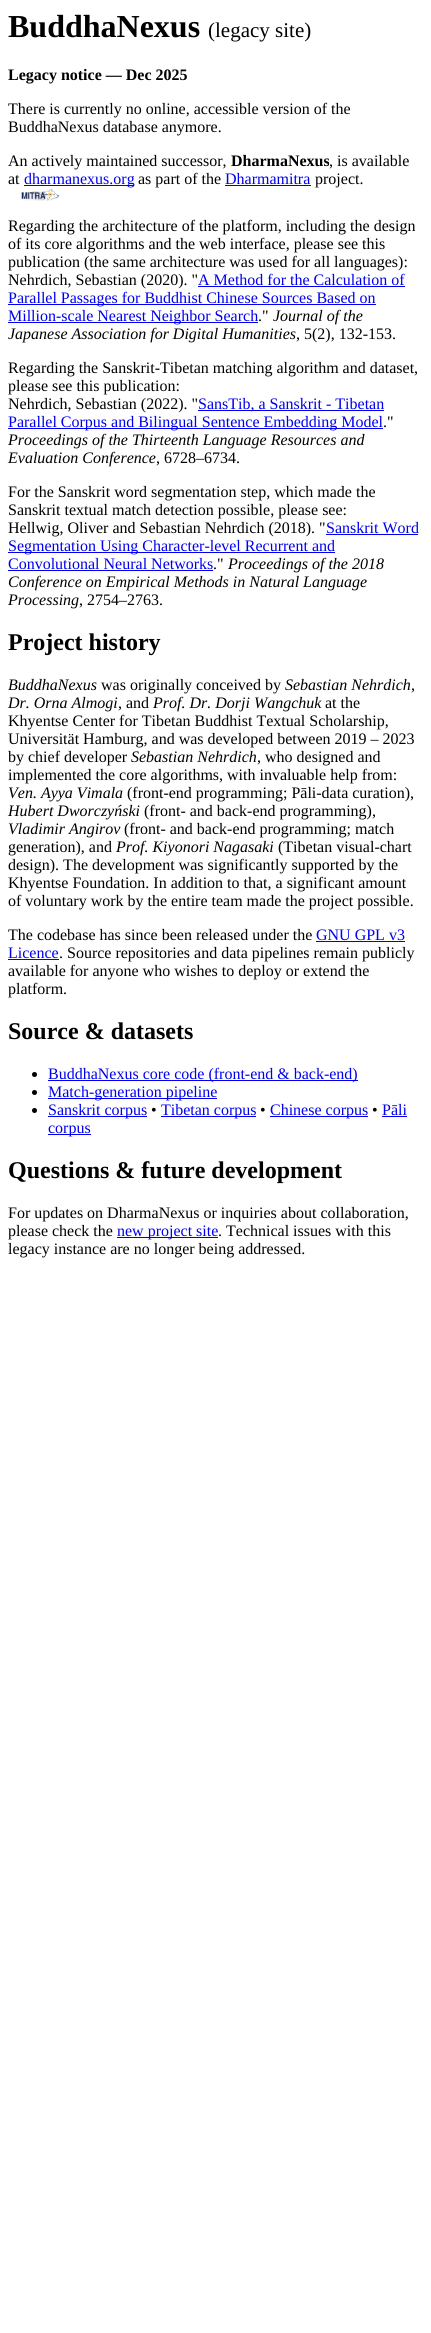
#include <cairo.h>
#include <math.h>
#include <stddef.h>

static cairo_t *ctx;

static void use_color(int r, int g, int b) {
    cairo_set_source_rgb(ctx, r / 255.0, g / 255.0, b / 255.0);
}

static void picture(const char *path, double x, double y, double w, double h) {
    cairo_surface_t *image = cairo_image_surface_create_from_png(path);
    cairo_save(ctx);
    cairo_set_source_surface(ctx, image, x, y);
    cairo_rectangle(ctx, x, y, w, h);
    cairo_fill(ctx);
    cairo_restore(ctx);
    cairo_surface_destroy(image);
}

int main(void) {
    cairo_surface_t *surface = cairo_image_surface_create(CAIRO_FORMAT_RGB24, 431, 2333);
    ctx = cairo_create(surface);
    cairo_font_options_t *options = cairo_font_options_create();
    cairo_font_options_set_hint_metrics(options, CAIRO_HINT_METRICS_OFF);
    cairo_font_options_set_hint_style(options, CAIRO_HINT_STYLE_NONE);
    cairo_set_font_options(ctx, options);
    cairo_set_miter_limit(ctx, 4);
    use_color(255, 255, 255);
    cairo_paint(ctx);
    cairo_select_font_face(ctx, "Liberation Serif", CAIRO_FONT_SLANT_NORMAL, CAIRO_FONT_WEIGHT_BOLD);
    cairo_set_font_size(ctx, 32);
    use_color(0, 0, 0);
    cairo_move_to(ctx, 8, 37);
    cairo_show_text(ctx, "BuddhaNexus");
    cairo_select_font_face(ctx, "Liberation Serif", CAIRO_FONT_SLANT_NORMAL, CAIRO_FONT_WEIGHT_NORMAL);
    cairo_set_font_size(ctx, 21);
    cairo_move_to(ctx, 208, 37);
    cairo_show_text(ctx, "(legacy site)");
    cairo_select_font_face(ctx, "Liberation Serif", CAIRO_FONT_SLANT_NORMAL, CAIRO_FONT_WEIGHT_BOLD);
    cairo_set_font_size(ctx, 16);
    cairo_move_to(ctx, 8, 80);
    cairo_show_text(ctx, "Legacy notice — Dec 2025");
    cairo_select_font_face(ctx, "Liberation Serif", CAIRO_FONT_SLANT_NORMAL, CAIRO_FONT_WEIGHT_NORMAL);
    cairo_move_to(ctx, 8, 114);
    cairo_show_text(ctx, "There is currently no online, accessible version of the");
    cairo_move_to(ctx, 8, 132);
    cairo_show_text(ctx, "BuddhaNexus database anymore.");
    cairo_move_to(ctx, 8, 166);
    cairo_show_text(ctx, "An actively maintained successor,");
    cairo_select_font_face(ctx, "Liberation Serif", CAIRO_FONT_SLANT_NORMAL, CAIRO_FONT_WEIGHT_BOLD);
    cairo_move_to(ctx, 231, 166);
    cairo_show_text(ctx, "DharmaNexus");
    cairo_select_font_face(ctx, "Liberation Serif", CAIRO_FONT_SLANT_NORMAL, CAIRO_FONT_WEIGHT_NORMAL);
    cairo_move_to(ctx, 329, 166);
    cairo_show_text(ctx, ", is available");
    cairo_move_to(ctx, 8, 184);
    cairo_show_text(ctx, "at");
    use_color(0, 0, 238);
    cairo_rectangle(ctx, 24, 185, 110, 1);
    cairo_fill(ctx);
    cairo_move_to(ctx, 24, 184);
    cairo_show_text(ctx, "dharmanexus.org");
    use_color(0, 0, 0);
    cairo_move_to(ctx, 138, 184);
    cairo_show_text(ctx, "as part of the");
    use_color(0, 0, 238);
    cairo_move_to(ctx, 225, 184);
    cairo_show_text(ctx, "Dharmamitra");
    cairo_rectangle(ctx, 225, 185, 86, 1);
    cairo_fill(ctx);
    use_color(0, 0, 0);
    cairo_move_to(ctx, 315, 184);
    cairo_show_text(ctx, "project.");
    picture("img1.png", 21, 188, 39, 13);
    cairo_move_to(ctx, 8, 231);
    cairo_show_text(ctx, "Regarding the architecture of the platform, including the design");
    cairo_move_to(ctx, 8, 249);
    cairo_show_text(ctx, "of its core algorithms and the web interface, please see this");
    cairo_move_to(ctx, 8, 267);
    cairo_show_text(ctx, "publication (the same architecture was used for all languages):");
    cairo_move_to(ctx, 8, 285);
    cairo_show_text(ctx, "Nehrdich, Sebastian (2020). \"");
    use_color(0, 0, 238);
    cairo_move_to(ctx, 198, 285);
    cairo_show_text(ctx, "A Method for the Calculation of");
    cairo_rectangle(ctx, 198, 286, 207, 1);
    cairo_fill(ctx);
    cairo_rectangle(ctx, 8, 304, 368, 1);
    cairo_fill(ctx);
    cairo_move_to(ctx, 8, 303);
    cairo_show_text(ctx, "Parallel Passages for Buddhist Chinese Sources Based on");
    cairo_rectangle(ctx, 8, 322, 250, 1);
    cairo_fill(ctx);
    cairo_move_to(ctx, 8, 321);
    cairo_show_text(ctx, "Million-scale Nearest Neighbor Search");
    use_color(0, 0, 0);
    cairo_move_to(ctx, 258, 321);
    cairo_show_text(ctx, ".\"");
    cairo_select_font_face(ctx, "Liberation Serif", CAIRO_FONT_SLANT_ITALIC, CAIRO_FONT_WEIGHT_NORMAL);
    cairo_move_to(ctx, 273, 321);
    cairo_show_text(ctx, "Journal of the");
    cairo_move_to(ctx, 8, 339);
    cairo_show_text(ctx, "Japanese Association for Digital Humanities");
    cairo_select_font_face(ctx, "Liberation Serif", CAIRO_FONT_SLANT_NORMAL, CAIRO_FONT_WEIGHT_NORMAL);
    cairo_move_to(ctx, 296, 339);
    cairo_show_text(ctx, ", 5(2), 132-153.");
    cairo_move_to(ctx, 8, 373);
    cairo_show_text(ctx, "Regarding the Sanskrit-Tibetan matching algorithm and dataset,");
    cairo_move_to(ctx, 8, 391);
    cairo_show_text(ctx, "please see this publication:");
    cairo_move_to(ctx, 8, 409);
    cairo_show_text(ctx, "Nehrdich, Sebastian (2022). \"");
    use_color(0, 0, 238);
    cairo_rectangle(ctx, 198, 410, 186, 1);
    cairo_fill(ctx);
    cairo_move_to(ctx, 198, 409);
    cairo_show_text(ctx, "SansTib, a Sanskrit - Tibetan");
    cairo_rectangle(ctx, 8, 428, 375, 1);
    cairo_fill(ctx);
    cairo_move_to(ctx, 8, 427);
    cairo_show_text(ctx, "Parallel Corpus and Bilingual Sentence Embedding Model");
    use_color(0, 0, 0);
    cairo_move_to(ctx, 383, 427);
    cairo_show_text(ctx, ".\"");
    cairo_select_font_face(ctx, "Liberation Serif", CAIRO_FONT_SLANT_ITALIC, CAIRO_FONT_WEIGHT_NORMAL);
    cairo_move_to(ctx, 8, 445);
    cairo_show_text(ctx, "Proceedings of the Thirteenth Language Resources and");
    cairo_move_to(ctx, 8, 463);
    cairo_show_text(ctx, "Evaluation Conference");
    cairo_select_font_face(ctx, "Liberation Serif", CAIRO_FONT_SLANT_NORMAL, CAIRO_FONT_WEIGHT_NORMAL);
    cairo_move_to(ctx, 156, 463);
    cairo_show_text(ctx, ", 6728–6734.");
    cairo_move_to(ctx, 8, 497);
    cairo_show_text(ctx, "For the Sanskrit word segmentation step, which made the");
    cairo_move_to(ctx, 8, 515);
    cairo_show_text(ctx, "Sanskrit textual match detection possible, please see:");
    cairo_move_to(ctx, 8, 533);
    cairo_show_text(ctx, "Hellwig, Oliver and Sebastian Nehrdich (2018). \"");
    use_color(0, 0, 238);
    cairo_move_to(ctx, 326, 533);
    cairo_show_text(ctx, "Sanskrit Word");
    cairo_rectangle(ctx, 326, 534, 92, 1);
    cairo_fill(ctx);
    cairo_rectangle(ctx, 8, 552, 327, 1);
    cairo_fill(ctx);
    cairo_move_to(ctx, 8, 551);
    cairo_show_text(ctx, "Segmentation Using Character-level Recurrent and");
    cairo_move_to(ctx, 8, 569);
    cairo_show_text(ctx, "Convolutional Neural Networks");
    cairo_rectangle(ctx, 8, 570, 205, 1);
    cairo_fill(ctx);
    use_color(0, 0, 0);
    cairo_move_to(ctx, 213, 569);
    cairo_show_text(ctx, ".\"");
    cairo_select_font_face(ctx, "Liberation Serif", CAIRO_FONT_SLANT_ITALIC, CAIRO_FONT_WEIGHT_NORMAL);
    cairo_move_to(ctx, 228, 569);
    cairo_show_text(ctx, "Proceedings of the 2018");
    cairo_move_to(ctx, 8, 587);
    cairo_show_text(ctx, "Conference on Empirical Methods in Natural Language");
    cairo_move_to(ctx, 8, 605);
    cairo_show_text(ctx, "Processing");
    cairo_select_font_face(ctx, "Liberation Serif", CAIRO_FONT_SLANT_NORMAL, CAIRO_FONT_WEIGHT_NORMAL);
    cairo_move_to(ctx, 79, 605);
    cairo_show_text(ctx, ", 2754–2763.");
    cairo_select_font_face(ctx, "Liberation Serif", CAIRO_FONT_SLANT_NORMAL, CAIRO_FONT_WEIGHT_BOLD);
    cairo_set_font_size(ctx, 24);
    cairo_move_to(ctx, 8, 650);
    cairo_show_text(ctx, "Project history");
    cairo_select_font_face(ctx, "Liberation Serif", CAIRO_FONT_SLANT_ITALIC, CAIRO_FONT_WEIGHT_NORMAL);
    cairo_set_font_size(ctx, 16);
    cairo_move_to(ctx, 8, 690);
    cairo_show_text(ctx, "BuddhaNexus");
    cairo_select_font_face(ctx, "Liberation Serif", CAIRO_FONT_SLANT_NORMAL, CAIRO_FONT_WEIGHT_NORMAL);
    cairo_move_to(ctx, 101, 690);
    cairo_show_text(ctx, "was originally conceived by");
    cairo_select_font_face(ctx, "Liberation Serif", CAIRO_FONT_SLANT_ITALIC, CAIRO_FONT_WEIGHT_NORMAL);
    cairo_move_to(ctx, 285, 690);
    cairo_show_text(ctx, "Sebastian Nehrdich");
    cairo_select_font_face(ctx, "Liberation Serif", CAIRO_FONT_SLANT_NORMAL, CAIRO_FONT_WEIGHT_NORMAL);
    cairo_move_to(ctx, 411, 690);
    cairo_show_text(ctx, ",");
    cairo_select_font_face(ctx, "Liberation Serif", CAIRO_FONT_SLANT_ITALIC, CAIRO_FONT_WEIGHT_NORMAL);
    cairo_move_to(ctx, 8, 708);
    cairo_show_text(ctx, "Dr. Orna Almogi");
    cairo_select_font_face(ctx, "Liberation Serif", CAIRO_FONT_SLANT_NORMAL, CAIRO_FONT_WEIGHT_NORMAL);
    cairo_move_to(ctx, 118, 708);
    cairo_show_text(ctx, ", and");
    cairo_select_font_face(ctx, "Liberation Serif", CAIRO_FONT_SLANT_ITALIC, CAIRO_FONT_WEIGHT_NORMAL);
    cairo_move_to(ctx, 153, 708);
    cairo_show_text(ctx, "Prof. Dr. Dorji Wangchuk");
    cairo_select_font_face(ctx, "Liberation Serif", CAIRO_FONT_SLANT_NORMAL, CAIRO_FONT_WEIGHT_NORMAL);
    cairo_move_to(ctx, 325, 708);
    cairo_show_text(ctx, "at the");
    cairo_move_to(ctx, 8, 726);
    cairo_show_text(ctx, "Khyentse Center for Tibetan Buddhist Textual Scholarship,");
    cairo_move_to(ctx, 8, 744);
    cairo_show_text(ctx, "Universität Hamburg, and was developed between 2019 – 2023");
    cairo_move_to(ctx, 8, 762);
    cairo_show_text(ctx, "by chief developer");
    cairo_select_font_face(ctx, "Liberation Serif", CAIRO_FONT_SLANT_ITALIC, CAIRO_FONT_WEIGHT_NORMAL);
    cairo_move_to(ctx, 131, 762);
    cairo_show_text(ctx, "Sebastian Nehrdich");
    cairo_select_font_face(ctx, "Liberation Serif", CAIRO_FONT_SLANT_NORMAL, CAIRO_FONT_WEIGHT_NORMAL);
    cairo_move_to(ctx, 257, 762);
    cairo_show_text(ctx, ", who designed and");
    cairo_move_to(ctx, 8, 780);
    cairo_show_text(ctx, "implemented the core algorithms, with invaluable help from:");
    cairo_select_font_face(ctx, "Liberation Serif", CAIRO_FONT_SLANT_ITALIC, CAIRO_FONT_WEIGHT_NORMAL);
    cairo_move_to(ctx, 8, 798);
    cairo_show_text(ctx, "Ven. Ayya Vimala");
    cairo_select_font_face(ctx, "Liberation Serif", CAIRO_FONT_SLANT_NORMAL, CAIRO_FONT_WEIGHT_NORMAL);
    cairo_move_to(ctx, 127, 798);
    cairo_show_text(ctx, "(front-end programming; Pāli-data curation),");
    cairo_select_font_face(ctx, "Liberation Serif", CAIRO_FONT_SLANT_ITALIC, CAIRO_FONT_WEIGHT_NORMAL);
    cairo_move_to(ctx, 8, 816);
    cairo_show_text(ctx, "Hubert Dworczyński");
    cairo_select_font_face(ctx, "Liberation Serif", CAIRO_FONT_SLANT_NORMAL, CAIRO_FONT_WEIGHT_NORMAL);
    cairo_move_to(ctx, 144, 816);
    cairo_show_text(ctx, "(front- and back-end programming),");
    cairo_select_font_face(ctx, "Liberation Serif", CAIRO_FONT_SLANT_ITALIC, CAIRO_FONT_WEIGHT_NORMAL);
    cairo_move_to(ctx, 8, 834);
    cairo_show_text(ctx, "Vladimir Angirov");
    cairo_select_font_face(ctx, "Liberation Serif", CAIRO_FONT_SLANT_NORMAL, CAIRO_FONT_WEIGHT_NORMAL);
    cairo_move_to(ctx, 124, 834);
    cairo_show_text(ctx, "(front- and back-end programming; match");
    cairo_move_to(ctx, 8, 852);
    cairo_show_text(ctx, "generation), and");
    cairo_select_font_face(ctx, "Liberation Serif", CAIRO_FONT_SLANT_ITALIC, CAIRO_FONT_WEIGHT_NORMAL);
    cairo_move_to(ctx, 116, 852);
    cairo_show_text(ctx, "Prof. Kiyonori Nagasaki");
    cairo_select_font_face(ctx, "Liberation Serif", CAIRO_FONT_SLANT_NORMAL, CAIRO_FONT_WEIGHT_NORMAL);
    cairo_move_to(ctx, 278, 852);
    cairo_show_text(ctx, "(Tibetan visual-chart");
    cairo_move_to(ctx, 8, 870);
    cairo_show_text(ctx, "design). The development was significantly supported by the");
    cairo_move_to(ctx, 8, 888);
    cairo_show_text(ctx, "Khyentse Foundation. In addition to that, a significant amount");
    cairo_move_to(ctx, 8, 906);
    cairo_show_text(ctx, "of voluntary work by the entire team made the project possible.");
    cairo_move_to(ctx, 8, 940);
    cairo_show_text(ctx, "The codebase has since been released under the");
    use_color(0, 0, 238);
    cairo_move_to(ctx, 316, 940);
    cairo_show_text(ctx, "GNU GPL v3");
    cairo_rectangle(ctx, 316, 941, 89, 1);
    cairo_fill(ctx);
    cairo_move_to(ctx, 8, 958);
    cairo_show_text(ctx, "Licence");
    cairo_rectangle(ctx, 8, 959, 51, 1);
    cairo_fill(ctx);
    use_color(0, 0, 0);
    cairo_move_to(ctx, 59, 958);
    cairo_show_text(ctx, ". Source repositories and data pipelines remain publicly");
    cairo_move_to(ctx, 8, 976);
    cairo_show_text(ctx, "available for anyone who wishes to deploy or extend the");
    cairo_move_to(ctx, 8, 994);
    cairo_show_text(ctx, "platform.");
    cairo_select_font_face(ctx, "Liberation Serif", CAIRO_FONT_SLANT_NORMAL, CAIRO_FONT_WEIGHT_BOLD);
    cairo_set_font_size(ctx, 24);
    cairo_move_to(ctx, 8, 1039);
    cairo_show_text(ctx, "Source & datasets");
    cairo_new_path(ctx);
    cairo_arc(ctx, 34.5, 1074.5, 2.5, 0, 2 * M_PI);
    cairo_fill(ctx);
    use_color(0, 0, 238);
    cairo_rectangle(ctx, 48, 1080, 310, 1);
    cairo_fill(ctx);
    cairo_select_font_face(ctx, "Liberation Serif", CAIRO_FONT_SLANT_NORMAL, CAIRO_FONT_WEIGHT_NORMAL);
    cairo_set_font_size(ctx, 16);
    cairo_move_to(ctx, 48, 1079);
    cairo_show_text(ctx, "BuddhaNexus core code (front-end & back-end)");
    use_color(0, 0, 0);
    cairo_new_path(ctx);
    cairo_arc(ctx, 34.5, 1092.5, 2.5, 0, 2 * M_PI);
    cairo_fill(ctx);
    use_color(0, 0, 238);
    cairo_rectangle(ctx, 48, 1098, 169, 1);
    cairo_fill(ctx);
    cairo_move_to(ctx, 48, 1097);
    cairo_show_text(ctx, "Match-generation pipeline");
    use_color(0, 0, 0);
    cairo_new_path(ctx);
    cairo_arc(ctx, 34.5, 1110.5, 2.5, 0, 2 * M_PI);
    cairo_fill(ctx);
    use_color(0, 0, 238);
    cairo_rectangle(ctx, 48, 1116, 99, 1);
    cairo_fill(ctx);
    cairo_move_to(ctx, 48, 1115);
    cairo_show_text(ctx, "Sanskrit corpus");
    use_color(0, 0, 0);
    cairo_move_to(ctx, 151, 1115);
    cairo_show_text(ctx, "•");
    use_color(0, 0, 238);
    cairo_rectangle(ctx, 161, 1116, 95, 1);
    cairo_fill(ctx);
    cairo_move_to(ctx, 161, 1115);
    cairo_show_text(ctx, "Tibetan corpus");
    use_color(0, 0, 0);
    cairo_move_to(ctx, 260, 1115);
    cairo_show_text(ctx, "•");
    use_color(0, 0, 238);
    cairo_rectangle(ctx, 270, 1116, 98, 1);
    cairo_fill(ctx);
    cairo_move_to(ctx, 270, 1115);
    cairo_show_text(ctx, "Chinese corpus");
    use_color(0, 0, 0);
    cairo_move_to(ctx, 372, 1115);
    cairo_show_text(ctx, "•");
    use_color(0, 0, 238);
    cairo_move_to(ctx, 382, 1115);
    cairo_show_text(ctx, "Pāli");
    cairo_rectangle(ctx, 382, 1116, 25, 1);
    cairo_fill(ctx);
    cairo_rectangle(ctx, 48, 1134, 43, 1);
    cairo_fill(ctx);
    cairo_move_to(ctx, 48, 1133);
    cairo_show_text(ctx, "corpus");
    cairo_select_font_face(ctx, "Liberation Serif", CAIRO_FONT_SLANT_NORMAL, CAIRO_FONT_WEIGHT_BOLD);
    cairo_set_font_size(ctx, 24);
    use_color(0, 0, 0);
    cairo_move_to(ctx, 8, 1178);
    cairo_show_text(ctx, "Questions & future development");
    cairo_select_font_face(ctx, "Liberation Serif", CAIRO_FONT_SLANT_NORMAL, CAIRO_FONT_WEIGHT_NORMAL);
    cairo_set_font_size(ctx, 16);
    cairo_move_to(ctx, 8, 1218);
    cairo_show_text(ctx, "For updates on DharmaNexus or inquiries about collaboration,");
    cairo_move_to(ctx, 8, 1236);
    cairo_show_text(ctx, "please check the");
    use_color(0, 0, 238);
    cairo_rectangle(ctx, 117, 1237, 101, 1);
    cairo_fill(ctx);
    cairo_move_to(ctx, 117, 1236);
    cairo_show_text(ctx, "new project site");
    use_color(0, 0, 0);
    cairo_move_to(ctx, 218, 1236);
    cairo_show_text(ctx, ". Technical issues with this");
    cairo_move_to(ctx, 8, 1254);
    cairo_show_text(ctx, "legacy instance are no longer being addressed.");
    cairo_surface_write_to_png(surface, "result.png");
    cairo_font_options_destroy(options);
    cairo_destroy(ctx);
    cairo_surface_destroy(surface);
    return 0;
}
